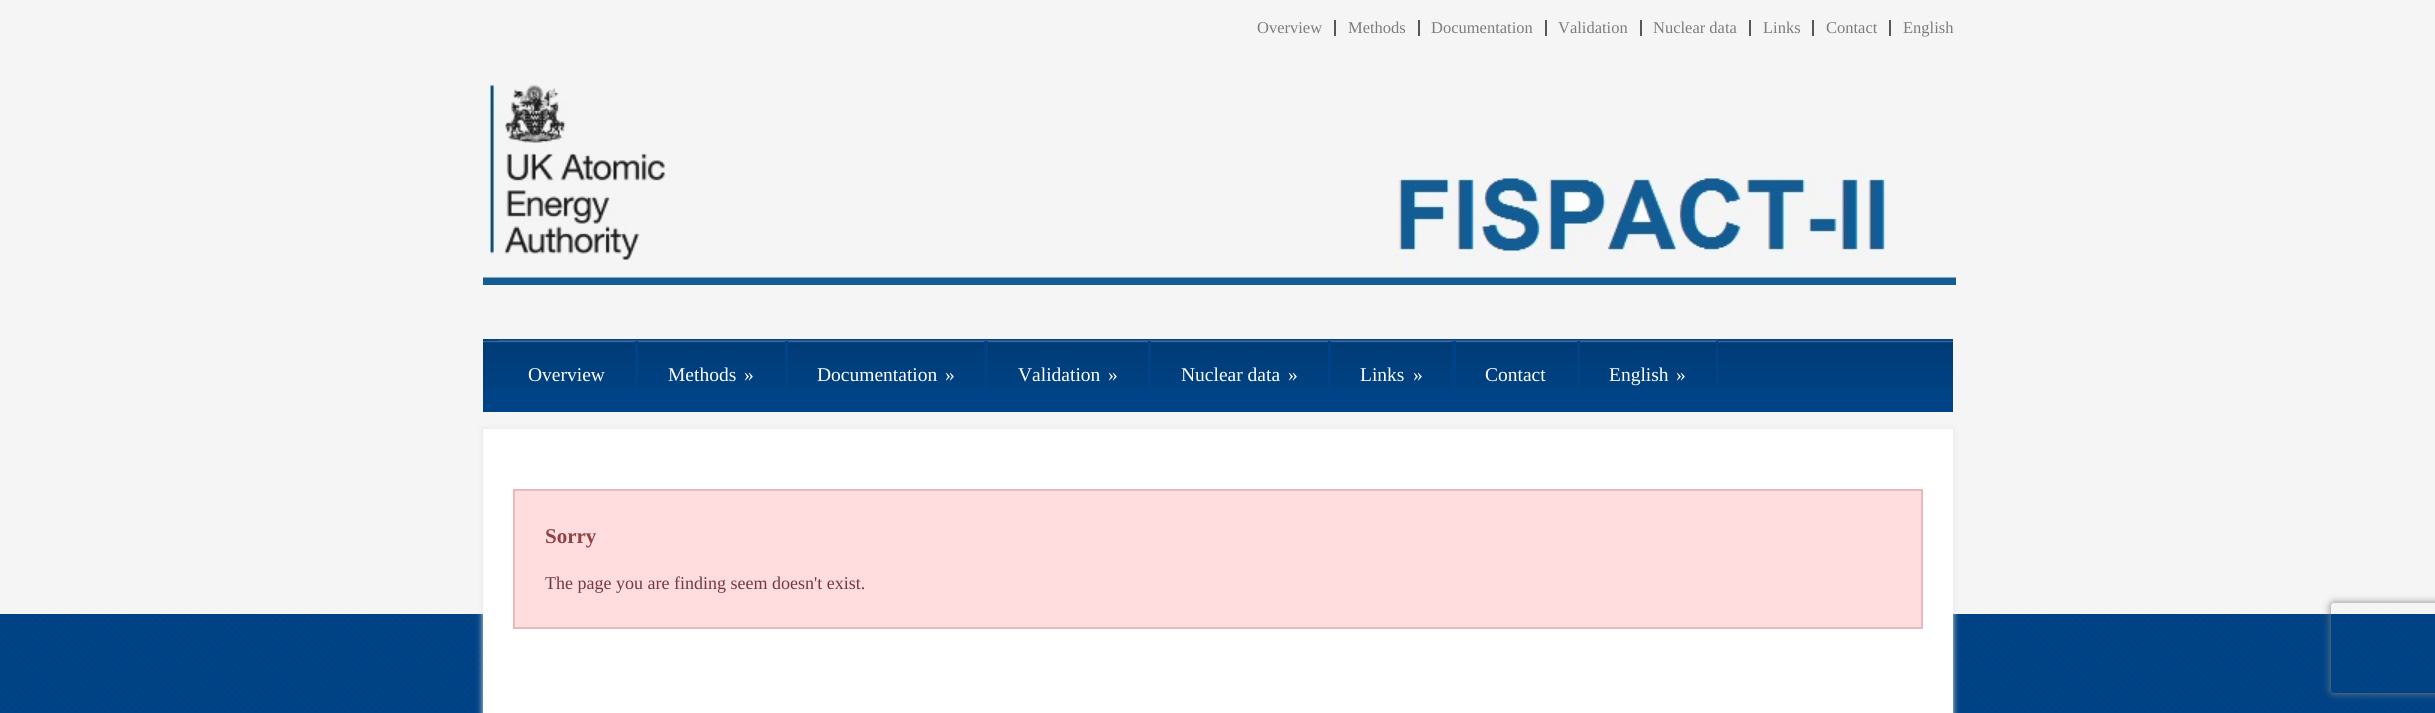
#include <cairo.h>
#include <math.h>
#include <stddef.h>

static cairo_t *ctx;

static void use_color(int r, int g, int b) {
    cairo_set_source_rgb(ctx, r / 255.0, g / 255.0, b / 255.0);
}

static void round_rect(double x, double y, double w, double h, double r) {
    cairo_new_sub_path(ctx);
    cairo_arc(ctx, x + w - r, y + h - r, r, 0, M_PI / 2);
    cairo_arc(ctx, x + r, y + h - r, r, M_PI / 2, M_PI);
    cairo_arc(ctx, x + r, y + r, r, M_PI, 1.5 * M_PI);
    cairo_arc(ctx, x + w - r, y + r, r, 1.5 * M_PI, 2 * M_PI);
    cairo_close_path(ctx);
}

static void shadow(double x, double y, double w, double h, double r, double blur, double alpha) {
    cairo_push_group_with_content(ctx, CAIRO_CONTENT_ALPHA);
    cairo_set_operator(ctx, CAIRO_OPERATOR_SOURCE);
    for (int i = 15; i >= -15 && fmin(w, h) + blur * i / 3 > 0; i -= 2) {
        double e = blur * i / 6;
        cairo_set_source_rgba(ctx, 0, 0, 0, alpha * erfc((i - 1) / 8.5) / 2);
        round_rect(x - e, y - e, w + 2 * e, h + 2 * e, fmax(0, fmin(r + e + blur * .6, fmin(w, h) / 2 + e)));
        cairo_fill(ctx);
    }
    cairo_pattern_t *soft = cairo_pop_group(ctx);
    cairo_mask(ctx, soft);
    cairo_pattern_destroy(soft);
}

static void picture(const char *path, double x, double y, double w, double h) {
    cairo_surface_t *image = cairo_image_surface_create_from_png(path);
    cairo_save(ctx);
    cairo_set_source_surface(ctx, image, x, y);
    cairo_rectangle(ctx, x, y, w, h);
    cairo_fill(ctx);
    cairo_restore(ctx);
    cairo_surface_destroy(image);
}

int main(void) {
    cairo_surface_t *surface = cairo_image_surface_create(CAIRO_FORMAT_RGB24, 2435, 713);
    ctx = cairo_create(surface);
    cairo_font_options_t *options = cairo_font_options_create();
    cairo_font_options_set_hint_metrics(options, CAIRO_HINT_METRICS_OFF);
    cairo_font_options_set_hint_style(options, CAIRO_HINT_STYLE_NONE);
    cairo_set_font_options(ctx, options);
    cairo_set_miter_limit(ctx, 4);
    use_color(245, 245, 245);
    cairo_paint(ctx);
    use_color(87, 87, 87);
    cairo_rectangle(ctx, 1334, 20, 2, 16);
    cairo_fill(ctx);
    cairo_select_font_face(ctx, "Liberation Serif", CAIRO_FONT_SLANT_NORMAL, CAIRO_FONT_WEIGHT_NORMAL);
    cairo_set_font_size(ctx, 16.5);
    use_color(124, 124, 124);
    cairo_move_to(ctx, 1257, 33);
    cairo_show_text(ctx, "Overview");
    use_color(87, 87, 87);
    cairo_rectangle(ctx, 1418, 20, 2, 16);
    cairo_fill(ctx);
    use_color(124, 124, 124);
    cairo_move_to(ctx, 1348, 33);
    cairo_show_text(ctx, "Methods");
    use_color(87, 87, 87);
    cairo_rectangle(ctx, 1545, 20, 2, 16);
    cairo_fill(ctx);
    use_color(124, 124, 124);
    cairo_move_to(ctx, 1431, 33);
    cairo_show_text(ctx, "Documentation");
    use_color(87, 87, 87);
    cairo_rectangle(ctx, 1640, 20, 2, 16);
    cairo_fill(ctx);
    use_color(124, 124, 124);
    cairo_move_to(ctx, 1558, 33);
    cairo_show_text(ctx, "Validation");
    use_color(87, 87, 87);
    cairo_rectangle(ctx, 1749, 20, 2, 16);
    cairo_fill(ctx);
    use_color(124, 124, 124);
    cairo_move_to(ctx, 1653, 33);
    cairo_show_text(ctx, "Nuclear data");
    use_color(87, 87, 87);
    cairo_rectangle(ctx, 1812, 20, 2, 16);
    cairo_fill(ctx);
    use_color(124, 124, 124);
    cairo_move_to(ctx, 1763, 33);
    cairo_show_text(ctx, "Links");
    use_color(87, 87, 87);
    cairo_rectangle(ctx, 1889, 20, 2, 16);
    cairo_fill(ctx);
    use_color(124, 124, 124);
    cairo_move_to(ctx, 1826, 33);
    cairo_show_text(ctx, "Contact");
    cairo_move_to(ctx, 1903, 33);
    cairo_show_text(ctx, "English");
    picture("img1.png", 483, 78, 1473, 207);
    use_color(0, 67, 134);
    cairo_rectangle(ctx, 483, 339, 1470, 73);
    cairo_fill(ctx);
    picture("img2.png", 483, 341, 1470, 48);
    cairo_rectangle(ctx, 498, 341, 137, 48);
    cairo_fill(ctx);
    picture("img3.png", 498, 340, 138, 49);
    cairo_rectangle(ctx, 635, 341, 1, 48);
    cairo_fill(ctx);
    cairo_set_font_size(ctx, 19.5);
    use_color(255, 255, 255);
    cairo_move_to(ctx, 528, 381);
    cairo_show_text(ctx, "Overview");
    use_color(0, 67, 134);
    cairo_rectangle(ctx, 638, 341, 147, 48);
    cairo_fill(ctx);
    picture("img4.png", 636, 340, 150, 49);
    cairo_rectangle(ctx, 785, 341, 1, 48);
    cairo_fill(ctx);
    cairo_rectangle(ctx, 636, 341, 2, 48);
    cairo_fill(ctx);
    use_color(255, 255, 255);
    cairo_move_to(ctx, 668, 381);
    cairo_show_text(ctx, "Methods");
    cairo_move_to(ctx, 744, 381);
    cairo_show_text(ctx, "»");
    use_color(0, 67, 134);
    cairo_rectangle(ctx, 788, 341, 196, 48);
    cairo_fill(ctx);
    picture("img5.png", 786, 340, 200, 49);
    cairo_rectangle(ctx, 984, 341, 2, 48);
    cairo_fill(ctx);
    cairo_rectangle(ctx, 786, 341, 2, 48);
    cairo_fill(ctx);
    use_color(255, 255, 255);
    cairo_move_to(ctx, 817, 381);
    cairo_show_text(ctx, "Documentation");
    cairo_move_to(ctx, 945, 381);
    cairo_show_text(ctx, "»");
    use_color(0, 67, 134);
    cairo_rectangle(ctx, 988, 341, 160, 48);
    cairo_fill(ctx);
    picture("img6.png", 985, 340, 164, 49);
    cairo_rectangle(ctx, 1148, 341, 1, 48);
    cairo_fill(ctx);
    cairo_rectangle(ctx, 986, 341, 2, 48);
    cairo_fill(ctx);
    use_color(255, 255, 255);
    cairo_move_to(ctx, 1018, 381);
    cairo_show_text(ctx, "Validation");
    cairo_move_to(ctx, 1108, 381);
    cairo_show_text(ctx, "»");
    use_color(0, 67, 134);
    cairo_rectangle(ctx, 1151, 341, 177, 48);
    cairo_fill(ctx);
    picture("img7.png", 1149, 340, 180, 49);
    cairo_rectangle(ctx, 1328, 341, 1, 48);
    cairo_fill(ctx);
    cairo_rectangle(ctx, 1149, 341, 2, 48);
    cairo_fill(ctx);
    use_color(255, 255, 255);
    cairo_move_to(ctx, 1181, 381);
    cairo_show_text(ctx, "Nuclear data");
    cairo_move_to(ctx, 1288, 381);
    cairo_show_text(ctx, "»");
    use_color(0, 67, 134);
    cairo_rectangle(ctx, 1331, 341, 121, 48);
    cairo_fill(ctx);
    picture("img8.png", 1329, 340, 125, 49);
    cairo_rectangle(ctx, 1452, 341, 2, 48);
    cairo_fill(ctx);
    cairo_rectangle(ctx, 1329, 341, 2, 48);
    cairo_fill(ctx);
    use_color(255, 255, 255);
    cairo_move_to(ctx, 1360, 381);
    cairo_show_text(ctx, "Links");
    cairo_move_to(ctx, 1413, 381);
    cairo_show_text(ctx, "»");
    use_color(0, 67, 134);
    cairo_rectangle(ctx, 1456, 341, 121, 48);
    cairo_fill(ctx);
    picture("img9.png", 1453, 340, 125, 49);
    cairo_rectangle(ctx, 1577, 341, 1, 48);
    cairo_fill(ctx);
    cairo_rectangle(ctx, 1454, 341, 2, 48);
    cairo_fill(ctx);
    use_color(255, 255, 255);
    cairo_move_to(ctx, 1485, 381);
    cairo_show_text(ctx, "Contact");
    use_color(0, 67, 134);
    cairo_rectangle(ctx, 1580, 341, 136, 48);
    cairo_fill(ctx);
    picture("img10.png", 1578, 340, 140, 49);
    cairo_rectangle(ctx, 1716, 341, 2, 48);
    cairo_fill(ctx);
    cairo_rectangle(ctx, 1578, 341, 2, 48);
    cairo_fill(ctx);
    use_color(255, 255, 255);
    cairo_move_to(ctx, 1609, 381);
    cairo_show_text(ctx, "English");
    cairo_move_to(ctx, 1676, 381);
    cairo_show_text(ctx, "»");
    use_color(0, 67, 134);
    cairo_rectangle(ctx, 0, 614, 2435, 99);
    cairo_fill(ctx);
    picture("img11.png", 0, 614, 2434, 98);
    use_color(229, 229, 229);
    shadow(483, 429, 1470, 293, 0, 3, 1);
    use_color(255, 255, 255);
    cairo_rectangle(ctx, 483, 429, 1470, 284);
    cairo_fill(ctx);
    use_color(255, 220, 221);
    cairo_rectangle(ctx, 514, 490, 1408, 138);
    cairo_fill_preserve(ctx);
    use_color(233, 185, 187);
    cairo_stroke(ctx);
    cairo_select_font_face(ctx, "Liberation Serif", CAIRO_FONT_SLANT_NORMAL, CAIRO_FONT_WEIGHT_BOLD);
    cairo_set_font_size(ctx, 21);
    use_color(141, 67, 69);
    cairo_move_to(ctx, 545, 543);
    cairo_show_text(ctx, "Sorry");
    cairo_select_font_face(ctx, "Liberation Serif", CAIRO_FONT_SLANT_NORMAL, CAIRO_FONT_WEIGHT_NORMAL);
    cairo_set_font_size(ctx, 18);
    use_color(113, 58, 60);
    cairo_move_to(ctx, 545, 589);
    cairo_show_text(ctx, "The page you are finding seem doesn't exist.");
    cairo_save(ctx);
    cairo_set_fill_rule(ctx, CAIRO_FILL_RULE_EVEN_ODD);
    cairo_new_path(ctx);
    cairo_move_to(ctx, 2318, 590);
    cairo_line_to(ctx, 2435, 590);
    cairo_line_to(ctx, 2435, 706);
    cairo_line_to(ctx, 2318, 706);
    cairo_close_path(ctx);
    cairo_move_to(ctx, 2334, 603);
    cairo_line_to(ctx, 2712, 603);
    cairo_curve_to(ctx, 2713.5, 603, 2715, 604.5, 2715, 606);
    cairo_line_to(ctx, 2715, 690);
    cairo_curve_to(ctx, 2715, 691.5, 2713.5, 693, 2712, 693);
    cairo_line_to(ctx, 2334, 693);
    cairo_curve_to(ctx, 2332.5, 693, 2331, 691.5, 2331, 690);
    cairo_line_to(ctx, 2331, 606);
    cairo_curve_to(ctx, 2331, 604.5, 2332.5, 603, 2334, 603);
    cairo_close_path(ctx);
    cairo_clip(ctx);
    use_color(128, 128, 128);
    shadow(2331, 603, 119, 90, 3, 4, 1);
    cairo_restore(ctx);
    cairo_surface_write_to_png(surface, "result.png");
    cairo_font_options_destroy(options);
    cairo_destroy(ctx);
    cairo_surface_destroy(surface);
    return 0;
}
